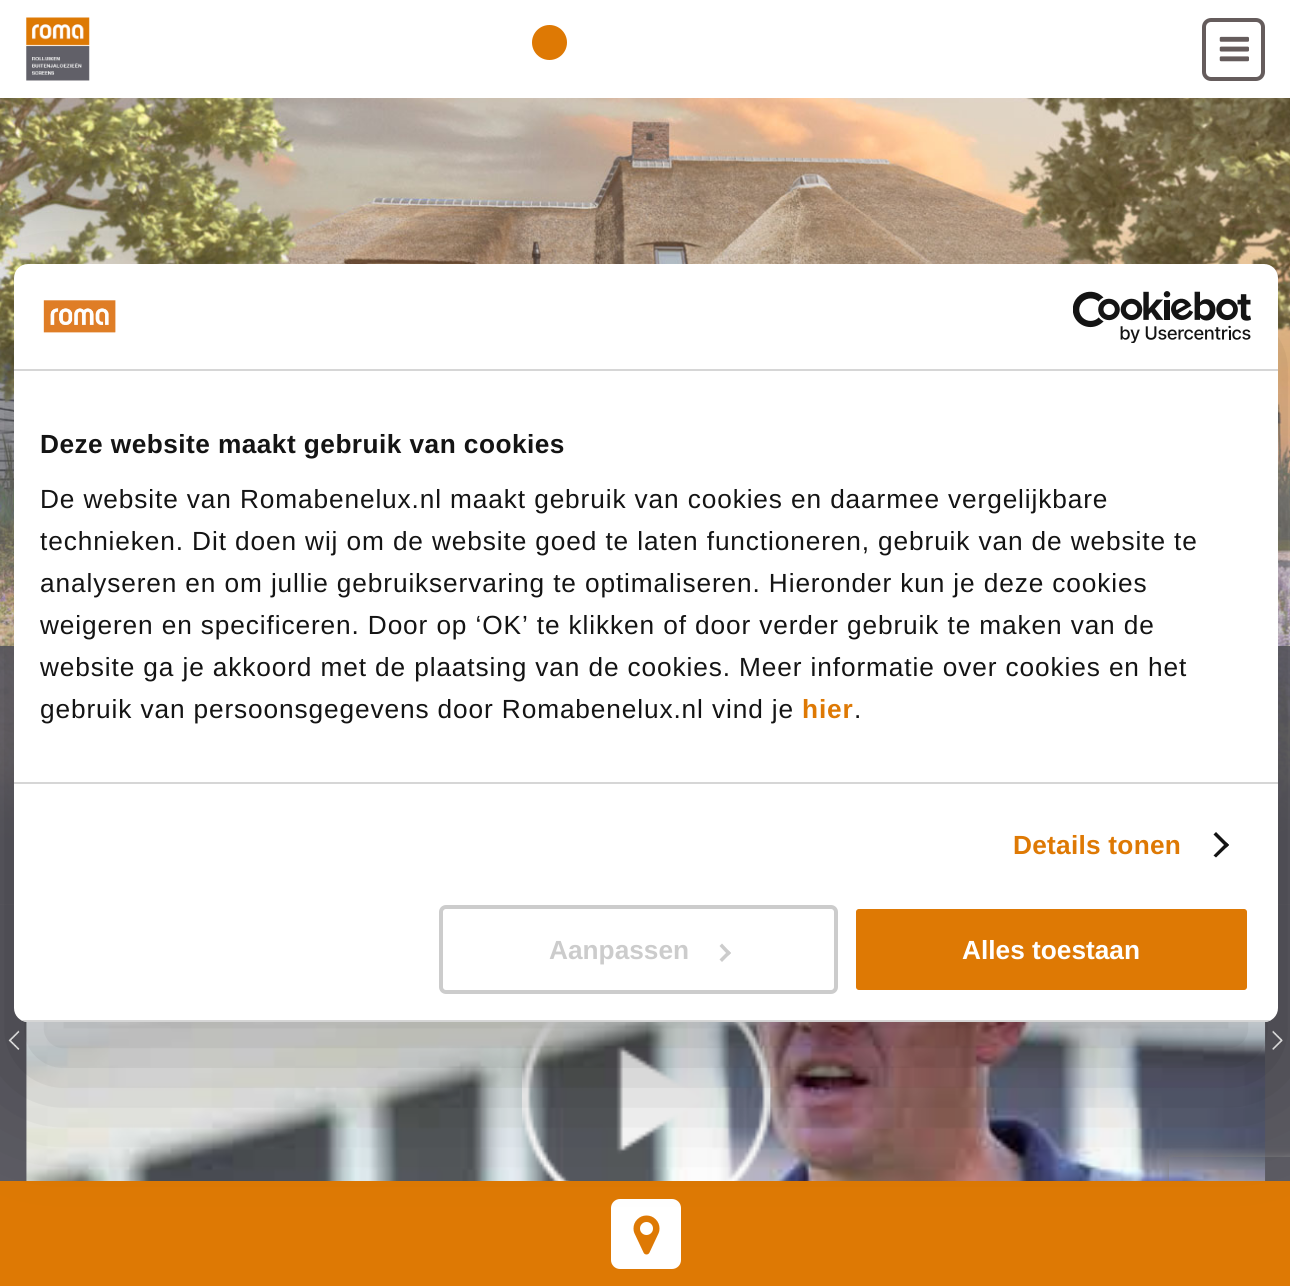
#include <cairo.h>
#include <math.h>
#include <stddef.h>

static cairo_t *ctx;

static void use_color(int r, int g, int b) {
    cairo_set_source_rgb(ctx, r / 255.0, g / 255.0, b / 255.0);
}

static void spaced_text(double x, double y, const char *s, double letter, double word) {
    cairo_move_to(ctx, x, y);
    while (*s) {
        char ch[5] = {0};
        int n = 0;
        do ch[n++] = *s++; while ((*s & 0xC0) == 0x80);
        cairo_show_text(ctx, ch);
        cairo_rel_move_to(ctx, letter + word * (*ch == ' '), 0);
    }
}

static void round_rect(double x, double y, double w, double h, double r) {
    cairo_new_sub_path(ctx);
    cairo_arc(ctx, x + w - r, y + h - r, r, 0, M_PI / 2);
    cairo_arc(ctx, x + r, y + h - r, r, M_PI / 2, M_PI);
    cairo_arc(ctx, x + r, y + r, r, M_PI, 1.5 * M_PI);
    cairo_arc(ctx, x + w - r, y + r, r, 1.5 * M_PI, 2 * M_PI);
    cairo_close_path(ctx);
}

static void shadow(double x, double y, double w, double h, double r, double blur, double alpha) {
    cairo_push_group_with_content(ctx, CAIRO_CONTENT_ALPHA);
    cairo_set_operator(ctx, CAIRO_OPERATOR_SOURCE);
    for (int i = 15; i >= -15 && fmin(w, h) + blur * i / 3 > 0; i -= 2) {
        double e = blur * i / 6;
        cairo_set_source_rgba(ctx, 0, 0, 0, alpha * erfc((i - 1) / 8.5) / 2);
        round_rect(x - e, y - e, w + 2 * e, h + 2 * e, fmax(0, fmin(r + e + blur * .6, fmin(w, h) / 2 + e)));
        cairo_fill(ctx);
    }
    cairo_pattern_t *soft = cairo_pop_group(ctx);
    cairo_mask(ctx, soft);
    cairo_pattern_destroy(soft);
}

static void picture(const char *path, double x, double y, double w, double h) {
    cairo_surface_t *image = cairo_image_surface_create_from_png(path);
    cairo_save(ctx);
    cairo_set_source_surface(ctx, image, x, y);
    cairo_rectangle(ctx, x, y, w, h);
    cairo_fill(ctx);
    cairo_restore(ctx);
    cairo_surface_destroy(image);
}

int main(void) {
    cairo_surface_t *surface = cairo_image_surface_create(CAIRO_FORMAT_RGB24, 1290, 1286);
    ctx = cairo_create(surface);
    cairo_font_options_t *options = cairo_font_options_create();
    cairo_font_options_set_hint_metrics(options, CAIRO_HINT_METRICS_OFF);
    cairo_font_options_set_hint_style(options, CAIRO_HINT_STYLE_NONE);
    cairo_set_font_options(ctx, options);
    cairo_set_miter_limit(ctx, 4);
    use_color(51, 51, 51);
    cairo_paint(ctx);
    use_color(255, 255, 255);
    cairo_rectangle(ctx, 0, 0, 1290, 98);
    cairo_fill(ctx);
    picture("img1.png", 26, 17, 64, 64);
    round_rect(1204, 20, 59, 59, 7);
    use_color(101, 92, 92);
    cairo_set_line_width(ctx, 4);
    cairo_stroke(ctx);
    picture("img2.png", 1219, 36, 30, 26);
    use_color(222, 121, 4);
    cairo_arc(ctx, 549.5, 42.5, 17.5, 0, 2 * M_PI);
    cairo_fill(ctx);
    picture("img3.png", 0, 98, 1290, 807);
    picture("img4.png", 0, 735, 1290, 170);
    cairo_set_source_rgba(ctx, 0.38, 0.376, 0.408, 0.9);
    cairo_rectangle(ctx, 0, 646, 1290, 535);
    cairo_fill(ctx);
    picture("img5.png", 8, 1030, 12, 20);
    picture("img6.png", 26, 1021, 1240, 160);
    picture("img7.png", 521, 1022, 250, 159);
    picture("img8.png", 1272, 1030, 11, 20);
    cairo_save(ctx);
    cairo_set_fill_rule(ctx, CAIRO_FILL_RULE_EVEN_ODD);
    cairo_new_path(ctx);
    cairo_move_to(ctx, 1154, 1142);
    cairo_line_to(ctx, 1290, 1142);
    cairo_line_to(ctx, 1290, 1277);
    cairo_line_to(ctx, 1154, 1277);
    cairo_close_path(ctx);
    cairo_move_to(ctx, 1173, 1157);
    cairo_line_to(ctx, 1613, 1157);
    cairo_curve_to(ctx, 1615, 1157, 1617, 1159, 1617, 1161);
    cairo_line_to(ctx, 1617, 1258);
    cairo_curve_to(ctx, 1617, 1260, 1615, 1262, 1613, 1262);
    cairo_line_to(ctx, 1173, 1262);
    cairo_curve_to(ctx, 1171, 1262, 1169, 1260, 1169, 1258);
    cairo_line_to(ctx, 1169, 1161);
    cairo_curve_to(ctx, 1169, 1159, 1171, 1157, 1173, 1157);
    cairo_close_path(ctx);
    cairo_clip(ctx);
    use_color(128, 128, 128);
    shadow(1169, 1157, 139, 105, 4, 4.5, 1);
    cairo_restore(ctx);
    use_color(222, 121, 4);
    cairo_rectangle(ctx, 0, 1181, 1290, 105);
    cairo_fill(ctx);
    use_color(255, 255, 255);
    round_rect(611, 1199, 70, 70, 9);
    cairo_fill(ctx);
    picture("img9.png", 633, 1215, 27, 40);
    use_color(0, 0, 0);
    shadow(14, 320, 1264, 758, 14, 59.5, 0.3);
    use_color(255, 255, 255);
    round_rect(14, 264, 1264, 758, 14);
    cairo_fill(ctx);
    use_color(214, 214, 214);
    cairo_rectangle(ctx, 14, 369, 1264, 2);
    cairo_fill(ctx);
    picture("img10.png", 43, 300, 73, 33);
    picture("img11.png", 1073, 291, 178, 52);
    cairo_rectangle(ctx, 14, 782, 1264, 2);
    cairo_fill(ctx);
    cairo_select_font_face(ctx, "Liberation Sans", CAIRO_FONT_SLANT_NORMAL, CAIRO_FONT_WEIGHT_BOLD);
    cairo_set_font_size(ctx, 26.25);
    use_color(20, 20, 20);
    spaced_text(40, 453, "Deze website maakt gebruik van cookies", 0.45, 0);
    cairo_select_font_face(ctx, "Liberation Sans", CAIRO_FONT_SLANT_NORMAL, CAIRO_FONT_WEIGHT_NORMAL);
    spaced_text(40, 508, "De website van Romabenelux.nl maakt gebruik van cookies en daarmee vergelijkbare", 0.88, 0);
    spaced_text(40, 550, "technieken. Dit doen wij om de website goed te laten functioneren, gebruik van de website te", 0.88, 0);
    spaced_text(40, 592, "analyseren en om jullie gebruikservaring te optimaliseren. Hieronder kun je deze cookies", 0.88, 0);
    spaced_text(40, 634, "weigeren en specificeren. Door op ‘OK’ te klikken of door verder gebruik te maken van de", 0.88, 0);
    spaced_text(40, 676, "website ga je akkoord met de plaatsing van de cookies. Meer informatie over cookies en het", 0.88, 0);
    spaced_text(40, 718, "gebruik van persoonsgegevens door Romabenelux.nl vind je", 0.88, 0);
    cairo_select_font_face(ctx, "Liberation Sans", CAIRO_FONT_SLANT_NORMAL, CAIRO_FONT_WEIGHT_BOLD);
    use_color(222, 121, 4);
    spaced_text(802, 718, "hier", 0.88, 0);
    cairo_select_font_face(ctx, "Liberation Sans", CAIRO_FONT_SLANT_NORMAL, CAIRO_FONT_WEIGHT_NORMAL);
    use_color(20, 20, 20);
    spaced_text(854, 718, ".", 0.88, 0);
    cairo_select_font_face(ctx, "Liberation Sans", CAIRO_FONT_SLANT_NORMAL, CAIRO_FONT_WEIGHT_BOLD);
    use_color(222, 121, 4);
    spaced_text(1013, 854, "Details tonen", 0.25, 0);
    use_color(20, 20, 20);
    cairo_new_path(ctx);
    cairo_move_to(ctx, 1216, 832);
    cairo_line_to(ctx, 1229, 845);
    cairo_line_to(ctx, 1226.5, 847.5);
    cairo_line_to(ctx, 1213.5, 834.5);
    cairo_close_path(ctx);
    cairo_fill(ctx);
    cairo_new_path(ctx);
    cairo_move_to(ctx, 1226.5, 842.5);
    cairo_line_to(ctx, 1229, 845);
    cairo_line_to(ctx, 1216, 857.5);
    cairo_line_to(ctx, 1213.5, 855.5);
    cairo_close_path(ctx);
    cairo_fill(ctx);
    cairo_save(ctx);
    round_rect(14, 264, 1264, 758, 14);
    cairo_clip(ctx);
    use_color(214, 214, 214);
    cairo_rectangle(ctx, 14, 1020, 1264, 2);
    cairo_fill(ctx);
    cairo_restore(ctx);
    round_rect(441, 907, 395, 85, 5);
    use_color(204, 204, 204);
    cairo_stroke(ctx);
    cairo_move_to(ctx, 549, 959);
    cairo_show_text(ctx, "Aanpassen");
    cairo_new_path(ctx);
    cairo_move_to(ctx, 722, 943.5);
    cairo_line_to(ctx, 731, 953);
    cairo_line_to(ctx, 728.5, 955.5);
    cairo_line_to(ctx, 719.5, 946);
    cairo_close_path(ctx);
    cairo_fill(ctx);
    cairo_new_path(ctx);
    cairo_move_to(ctx, 728.5, 950.5);
    cairo_line_to(ctx, 731, 953);
    cairo_line_to(ctx, 722, 962);
    cairo_line_to(ctx, 719.5, 959.5);
    cairo_close_path(ctx);
    cairo_fill(ctx);
    use_color(222, 121, 4);
    round_rect(854, 907, 395, 85, 5);
    cairo_fill_preserve(ctx);
    use_color(255, 255, 255);
    cairo_stroke(ctx);
    cairo_move_to(ctx, 962, 959);
    cairo_show_text(ctx, "Alles toestaan");
    cairo_surface_write_to_png(surface, "result.png");
    cairo_font_options_destroy(options);
    cairo_destroy(ctx);
    cairo_surface_destroy(surface);
    return 0;
}
